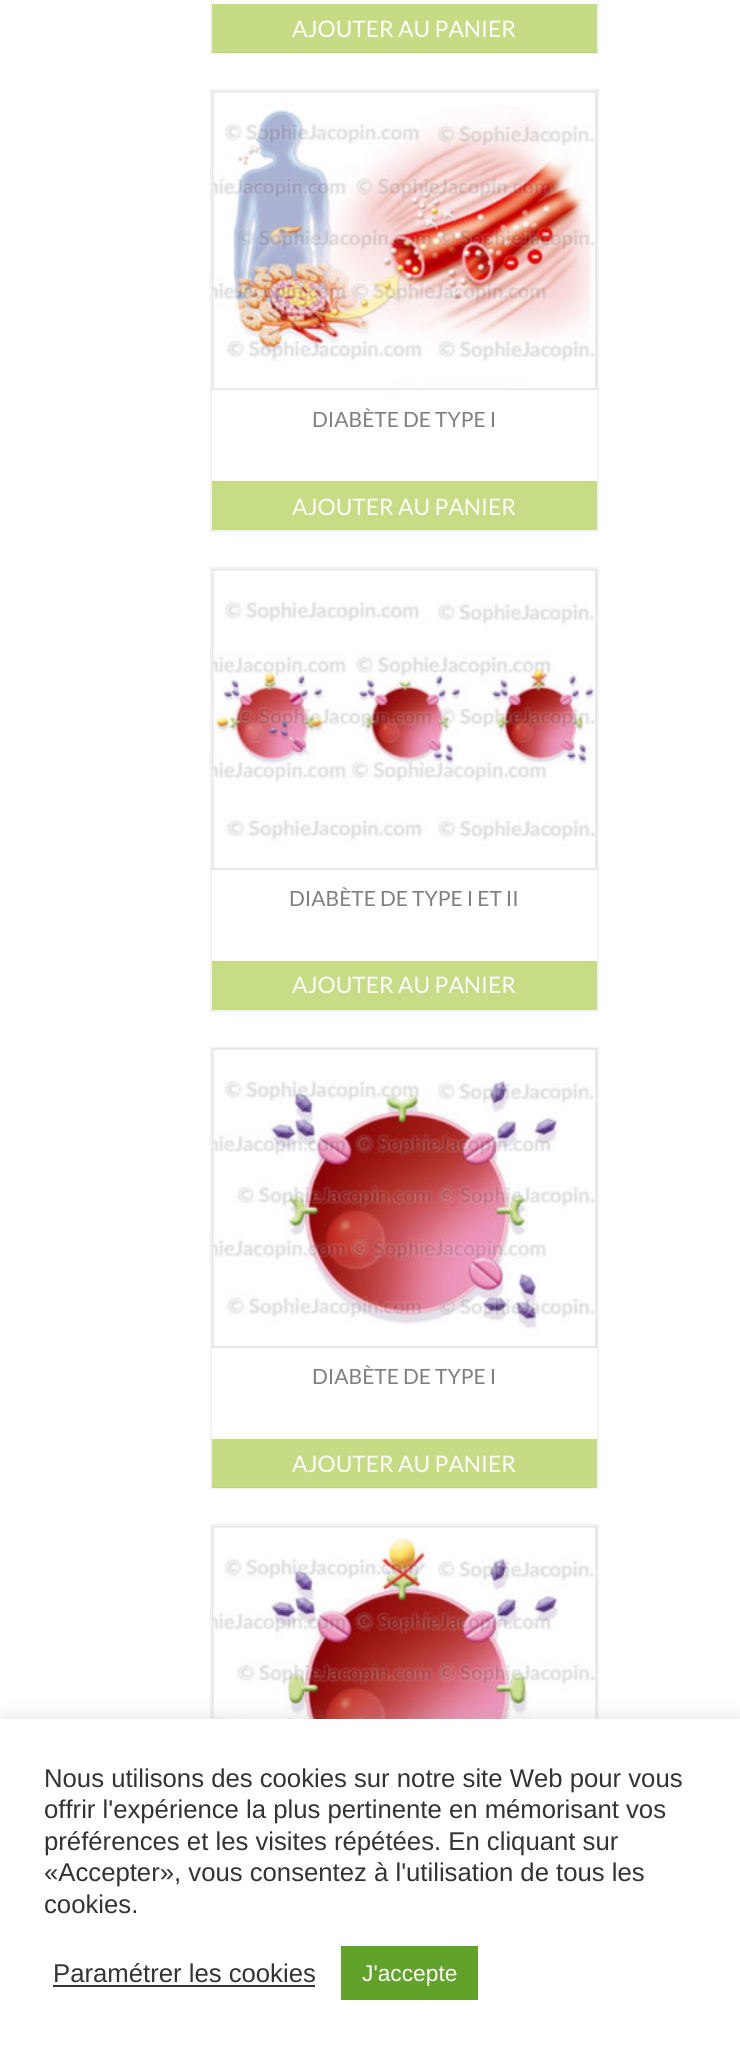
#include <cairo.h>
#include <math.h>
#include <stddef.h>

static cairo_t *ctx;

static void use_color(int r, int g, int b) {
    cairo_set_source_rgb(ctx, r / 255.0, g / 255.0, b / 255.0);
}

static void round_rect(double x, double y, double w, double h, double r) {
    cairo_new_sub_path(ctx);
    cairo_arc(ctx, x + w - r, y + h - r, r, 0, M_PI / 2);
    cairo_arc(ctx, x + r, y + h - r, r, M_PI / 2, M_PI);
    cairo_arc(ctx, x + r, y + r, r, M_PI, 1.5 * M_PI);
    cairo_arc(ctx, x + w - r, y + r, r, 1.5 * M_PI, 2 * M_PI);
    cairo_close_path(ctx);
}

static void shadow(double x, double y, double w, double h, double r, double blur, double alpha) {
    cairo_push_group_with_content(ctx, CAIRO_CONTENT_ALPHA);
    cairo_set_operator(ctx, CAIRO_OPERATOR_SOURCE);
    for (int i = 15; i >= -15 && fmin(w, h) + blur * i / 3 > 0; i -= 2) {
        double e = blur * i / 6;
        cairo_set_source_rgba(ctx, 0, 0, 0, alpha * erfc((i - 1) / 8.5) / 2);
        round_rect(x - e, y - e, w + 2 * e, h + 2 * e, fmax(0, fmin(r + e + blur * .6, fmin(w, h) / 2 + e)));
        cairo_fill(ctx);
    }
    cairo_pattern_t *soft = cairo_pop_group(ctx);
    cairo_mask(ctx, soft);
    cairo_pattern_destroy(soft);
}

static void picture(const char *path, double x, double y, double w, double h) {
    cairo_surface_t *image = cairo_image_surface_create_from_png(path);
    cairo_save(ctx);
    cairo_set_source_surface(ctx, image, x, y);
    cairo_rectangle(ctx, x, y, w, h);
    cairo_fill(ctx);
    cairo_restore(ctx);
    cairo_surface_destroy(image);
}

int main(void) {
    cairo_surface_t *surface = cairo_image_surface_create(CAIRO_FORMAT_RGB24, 740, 2052);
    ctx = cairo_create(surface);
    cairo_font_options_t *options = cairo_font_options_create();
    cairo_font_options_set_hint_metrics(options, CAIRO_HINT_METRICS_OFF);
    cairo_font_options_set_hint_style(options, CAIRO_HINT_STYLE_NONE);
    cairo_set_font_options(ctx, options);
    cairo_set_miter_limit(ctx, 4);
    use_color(255, 255, 255);
    cairo_paint(ctx);
    cairo_rectangle(ctx, 211, -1, 387, 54);
    use_color(242, 242, 242);
    cairo_stroke(ctx);
    cairo_set_source_rgba(ctx, 0.549, 0.722, 0.043, 0.5);
    cairo_rectangle(ctx, 212, 4, 385, 49);
    cairo_fill(ctx);
    cairo_select_font_face(ctx, "Lato", CAIRO_FONT_SLANT_NORMAL, CAIRO_FONT_WEIGHT_NORMAL);
    cairo_set_font_size(ctx, 22.75);
    use_color(255, 255, 255);
    cairo_move_to(ctx, 292, 37);
    cairo_show_text(ctx, "AJOUTER AU PANIER");
    cairo_rectangle(ctx, 211, 90, 387, 441);
    use_color(242, 242, 242);
    cairo_stroke(ctx);
    cairo_rectangle(ctx, 213, 92, 383, 297);
    use_color(230, 230, 230);
    cairo_stroke(ctx);
    picture("img1.png", 213, 92, 383, 297);
    cairo_set_font_size(ctx, 21);
    use_color(128, 128, 128);
    cairo_move_to(ctx, 312, 427);
    cairo_show_text(ctx, "DIABÈTE DE TYPE I");
    use_color(198, 220, 133);
    cairo_rectangle(ctx, 212, 481, 385, 49);
    cairo_fill(ctx);
    cairo_set_font_size(ctx, 22.75);
    use_color(255, 255, 255);
    cairo_move_to(ctx, 292, 515);
    cairo_show_text(ctx, "AJOUTER AU PANIER");
    cairo_rectangle(ctx, 211, 568, 387, 443);
    use_color(242, 242, 242);
    cairo_stroke(ctx);
    cairo_rectangle(ctx, 213, 570, 383, 299);
    use_color(230, 230, 230);
    cairo_stroke(ctx);
    picture("img2.png", 213, 570, 383, 299);
    cairo_set_font_size(ctx, 21);
    use_color(128, 128, 128);
    cairo_move_to(ctx, 289, 906);
    cairo_show_text(ctx, "DIABÈTE DE TYPE I ET II");
    use_color(198, 220, 133);
    cairo_rectangle(ctx, 212, 961, 385, 49);
    cairo_fill(ctx);
    cairo_set_font_size(ctx, 22.75);
    use_color(255, 255, 255);
    cairo_move_to(ctx, 292, 993);
    cairo_show_text(ctx, "AJOUTER AU PANIER");
    cairo_rectangle(ctx, 211, 1048, 387, 440);
    use_color(242, 242, 242);
    cairo_stroke(ctx);
    cairo_rectangle(ctx, 213, 1049, 383, 298);
    use_color(230, 230, 230);
    cairo_stroke(ctx);
    picture("img3.png", 213, 1049, 383, 297);
    cairo_set_font_size(ctx, 21);
    use_color(128, 128, 128);
    cairo_move_to(ctx, 312, 1384);
    cairo_show_text(ctx, "DIABÈTE DE TYPE I");
    cairo_set_source_rgba(ctx, 0.549, 0.722, 0.043, 0.5);
    cairo_rectangle(ctx, 212, 1439, 385, 49);
    cairo_fill(ctx);
    cairo_set_font_size(ctx, 22.75);
    use_color(255, 255, 255);
    cairo_move_to(ctx, 292, 1472);
    cairo_show_text(ctx, "AJOUTER AU PANIER");
    cairo_rectangle(ctx, 211, 1525, 387, 441);
    use_color(242, 242, 242);
    cairo_stroke(ctx);
    cairo_rectangle(ctx, 213, 1527, 383, 297);
    use_color(230, 230, 230);
    cairo_stroke(ctx);
    picture("img4.png", 213, 1527, 383, 192);
    use_color(172, 171, 171);
    shadow(0, 1717, 740, 334, 0, 9, 0.3);
    use_color(255, 255, 255);
    cairo_rectangle(ctx, 0, 1719, 740, 333);
    cairo_fill(ctx);
    cairo_select_font_face(ctx, "Liberation Sans", CAIRO_FONT_SLANT_NORMAL, CAIRO_FONT_WEIGHT_NORMAL);
    cairo_set_font_size(ctx, 25.7);
    use_color(51, 51, 51);
    cairo_move_to(ctx, 44, 1787);
    cairo_show_text(ctx, "Nous utilisons des cookies sur notre site Web pour vous");
    cairo_move_to(ctx, 44, 1818);
    cairo_show_text(ctx, "offrir l'expérience la plus pertinente en mémorisant vos");
    cairo_move_to(ctx, 44, 1850);
    cairo_show_text(ctx, "préférences et les visites répétées. En cliquant sur");
    cairo_move_to(ctx, 44, 1881);
    cairo_show_text(ctx, "«Accepter», vous consentez à l'utilisation de tous les");
    cairo_move_to(ctx, 44, 1913);
    cairo_show_text(ctx, "cookies.");
    cairo_move_to(ctx, 53, 1982);
    cairo_show_text(ctx, "Paramétrer les cookies");
    cairo_rectangle(ctx, 53, 1985, 262, 2);
    cairo_fill(ctx);
    use_color(97, 162, 41);
    cairo_rectangle(ctx, 341, 1946, 137, 54);
    cairo_fill(ctx);
    cairo_set_font_size(ctx, 22.75);
    use_color(255, 255, 255);
    cairo_move_to(ctx, 362, 1981);
    cairo_show_text(ctx, "J'accepte");
    cairo_surface_write_to_png(surface, "result.png");
    cairo_font_options_destroy(options);
    cairo_destroy(ctx);
    cairo_surface_destroy(surface);
    return 0;
}
